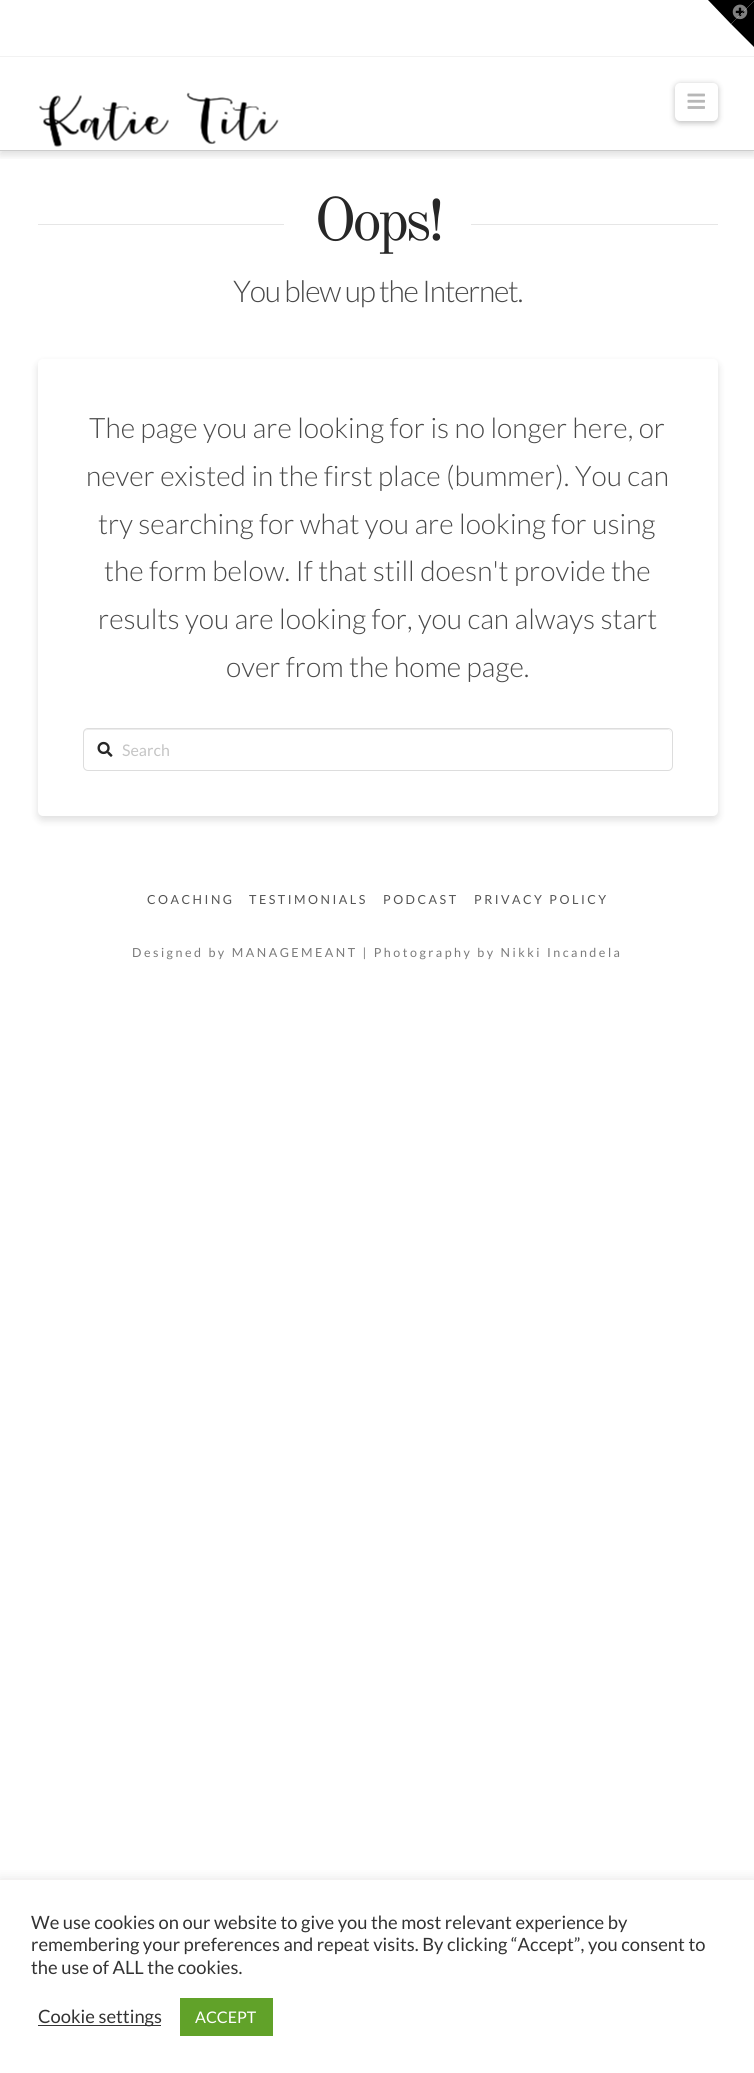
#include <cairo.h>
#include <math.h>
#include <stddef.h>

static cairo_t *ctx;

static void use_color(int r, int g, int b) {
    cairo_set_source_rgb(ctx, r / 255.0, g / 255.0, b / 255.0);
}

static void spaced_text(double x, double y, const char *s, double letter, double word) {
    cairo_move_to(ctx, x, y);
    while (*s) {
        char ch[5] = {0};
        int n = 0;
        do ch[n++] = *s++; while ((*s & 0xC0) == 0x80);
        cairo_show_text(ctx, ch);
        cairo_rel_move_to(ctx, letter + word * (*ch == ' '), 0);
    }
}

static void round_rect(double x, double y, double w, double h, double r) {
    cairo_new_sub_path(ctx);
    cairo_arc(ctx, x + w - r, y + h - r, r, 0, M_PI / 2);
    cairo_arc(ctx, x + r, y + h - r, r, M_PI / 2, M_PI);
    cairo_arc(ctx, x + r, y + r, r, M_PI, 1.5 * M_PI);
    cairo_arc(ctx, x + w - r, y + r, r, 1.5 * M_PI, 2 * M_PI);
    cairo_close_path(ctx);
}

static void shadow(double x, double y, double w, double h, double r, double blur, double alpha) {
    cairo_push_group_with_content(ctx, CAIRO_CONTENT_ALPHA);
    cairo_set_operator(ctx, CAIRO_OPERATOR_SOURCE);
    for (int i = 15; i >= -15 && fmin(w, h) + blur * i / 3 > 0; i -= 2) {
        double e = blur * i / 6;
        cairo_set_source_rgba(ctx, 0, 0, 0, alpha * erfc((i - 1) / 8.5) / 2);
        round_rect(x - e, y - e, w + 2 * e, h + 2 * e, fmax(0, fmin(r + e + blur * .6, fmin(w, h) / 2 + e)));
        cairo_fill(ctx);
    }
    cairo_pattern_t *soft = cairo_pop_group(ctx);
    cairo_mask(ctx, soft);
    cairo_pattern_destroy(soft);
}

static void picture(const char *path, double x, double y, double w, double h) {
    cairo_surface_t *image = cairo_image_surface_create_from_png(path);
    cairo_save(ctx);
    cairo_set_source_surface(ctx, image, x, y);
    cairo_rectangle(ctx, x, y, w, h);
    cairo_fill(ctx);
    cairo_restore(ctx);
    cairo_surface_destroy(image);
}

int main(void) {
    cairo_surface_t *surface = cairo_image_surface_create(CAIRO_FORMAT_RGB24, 754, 2073);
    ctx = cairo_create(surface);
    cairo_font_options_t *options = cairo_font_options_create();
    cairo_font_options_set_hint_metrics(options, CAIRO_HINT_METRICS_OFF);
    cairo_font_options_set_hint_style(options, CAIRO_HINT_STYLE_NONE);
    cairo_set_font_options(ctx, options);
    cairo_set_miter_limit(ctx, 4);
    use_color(255, 255, 255);
    cairo_paint(ctx);
    use_color(0, 0, 0);
    cairo_new_path(ctx);
    cairo_move_to(ctx, 708, 0);
    cairo_line_to(ctx, 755, 0);
    cairo_line_to(ctx, 731, 24);
    cairo_close_path(ctx);
    cairo_fill(ctx);
    cairo_new_path(ctx);
    cairo_move_to(ctx, 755, 0);
    cairo_line_to(ctx, 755, 48);
    cairo_line_to(ctx, 731, 24);
    cairo_close_path(ctx);
    cairo_fill(ctx);
    picture("img1.png", 732, 4, 16, 16);
    cairo_save(ctx);
    cairo_rectangle(ctx, 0, 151, 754, 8);
    cairo_clip(ctx);
    use_color(0, 0, 0);
    shadow(0, 61, 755, 94, 0, 4, 0.13);
    cairo_restore(ctx);
    use_color(204, 204, 204);
    cairo_rectangle(ctx, 0, 150, 754, 1);
    cairo_fill(ctx);
    picture("img2.png", 39, 92, 240, 55);
    use_color(0, 0, 0);
    shadow(675, 84, 43, 39, 5, 3, 0.25);
    use_color(255, 255, 255);
    round_rect(675, 83, 43, 38, 5);
    cairo_fill(ctx);
    picture("img3.png", 687, 93, 18, 16);
    cairo_rectangle(ctx, 1, 55, 753, 3);
    cairo_fill(ctx);
    use_color(242, 242, 242);
    cairo_rectangle(ctx, 0, 56, 754, 1);
    cairo_fill(ctx);
    use_color(230, 230, 230);
    cairo_rectangle(ctx, 38, 224, 246, 1);
    cairo_fill(ctx);
    cairo_select_font_face(ctx, "Old Standard TT", CAIRO_FONT_SLANT_NORMAL, CAIRO_FONT_WEIGHT_NORMAL);
    cairo_set_font_size(ctx, 60);
    use_color(39, 39, 39);
    spaced_text(314, 240, "Oops!", -3.75, 0);
    use_color(230, 230, 230);
    cairo_rectangle(ctx, 471, 224, 247, 1);
    cairo_fill(ctx);
    cairo_select_font_face(ctx, "Lato Light", CAIRO_FONT_SLANT_NORMAL, CAIRO_FONT_WEIGHT_NORMAL);
    cairo_set_font_size(ctx, 30);
    use_color(73, 73, 73);
    spaced_text(233, 302, "You blew up the Internet.", -1.25, 0);
    use_color(0, 0, 0);
    shadow(38, 363, 680, 457, 5, 4, 0.13);
    use_color(255, 255, 255);
    round_rect(38, 359, 680, 457, 5);
    cairo_fill(ctx);
    cairo_set_font_size(ctx, 28.1);
    use_color(73, 73, 73);
    cairo_move_to(ctx, 89, 438);
    cairo_show_text(ctx, "The page you are looking for is no longer here, or");
    cairo_move_to(ctx, 86, 486);
    cairo_show_text(ctx, "never existed in the first place (bummer). You can");
    cairo_move_to(ctx, 98, 534);
    cairo_show_text(ctx, "try searching for what you are looking for using");
    cairo_move_to(ctx, 104, 581);
    cairo_show_text(ctx, "the form below. If that still doesn't provide the");
    cairo_move_to(ctx, 98, 629);
    cairo_show_text(ctx, "results you are looking for, you can always start");
    cairo_move_to(ctx, 226, 677);
    cairo_show_text(ctx, "over from the home page.");
    use_color(236, 236, 236);
    cairo_new_path(ctx);
    cairo_move_to(ctx, 88, 730);
    cairo_line_to(ctx, 668, 730);
    cairo_curve_to(ctx, 670, 730, 671, 732, 671, 734);
    cairo_line_to(ctx, 671, 733);
    cairo_curve_to(ctx, 671, 731, 669, 729, 667, 729);
    cairo_line_to(ctx, 88, 729);
    cairo_curve_to(ctx, 86, 729, 84, 731, 84, 733);
    cairo_line_to(ctx, 84, 734);
    cairo_curve_to(ctx, 84, 732, 85, 730, 88, 730);
    cairo_close_path(ctx);
    cairo_fill(ctx);
    round_rect(83.5, 728.5, 589, 42, 4.5);
    use_color(221, 221, 221);
    cairo_set_line_width(ctx, 1);
    cairo_stroke(ctx);
    picture("img4.png", 97, 741, 16, 16);
    cairo_select_font_face(ctx, "Lato", CAIRO_FONT_SLANT_NORMAL, CAIRO_FONT_WEIGHT_NORMAL);
    cairo_set_font_size(ctx, 16);
    use_color(197, 197, 197);
    cairo_move_to(ctx, 122, 756);
    cairo_show_text(ctx, "Search");
    cairo_set_font_size(ctx, 12.5);
    use_color(84, 84, 84);
    spaced_text(147, 904, "COACHING", 2.5, 0);
    spaced_text(249, 904, "TESTIMONIALS", 2.5, 0);
    spaced_text(383, 904, "PODCAST", 2.5, 0);
    spaced_text(474, 904, "PRIVACY POLICY", 2.5, 0);
    use_color(122, 122, 122);
    spaced_text(132, 957, "Designed by MANAGEMEANT | Photography by Nikki Incandela", 2.5, 0);
    cairo_save(ctx);
    cairo_rectangle(ctx, 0, 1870, 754, 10);
    cairo_clip(ctx);
    use_color(172, 171, 171);
    shadow(0, 1879, 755, 194, 0, 6, 0.3);
    cairo_restore(ctx);
    cairo_set_font_size(ctx, 18.35);
    use_color(51, 51, 51);
    cairo_move_to(ctx, 31, 1929);
    cairo_show_text(ctx, "We use cookies on our website to give you the most relevant experience by");
    cairo_move_to(ctx, 31, 1951);
    cairo_show_text(ctx, "remembering your preferences and repeat visits. By clicking “Accept”, you consent to");
    cairo_move_to(ctx, 31, 1974);
    cairo_show_text(ctx, "the use of ALL the cookies.");
    cairo_rectangle(ctx, 38, 2025, 123, 1);
    cairo_fill(ctx);
    cairo_move_to(ctx, 38, 2023);
    cairo_show_text(ctx, "Cookie settings");
    use_color(97, 162, 41);
    cairo_rectangle(ctx, 180, 1998, 93, 38);
    cairo_fill(ctx);
    cairo_set_font_size(ctx, 16);
    use_color(255, 255, 255);
    cairo_move_to(ctx, 195, 2023);
    cairo_show_text(ctx, "ACCEPT");
    cairo_surface_write_to_png(surface, "result.png");
    cairo_font_options_destroy(options);
    cairo_destroy(ctx);
    cairo_surface_destroy(surface);
    return 0;
}
